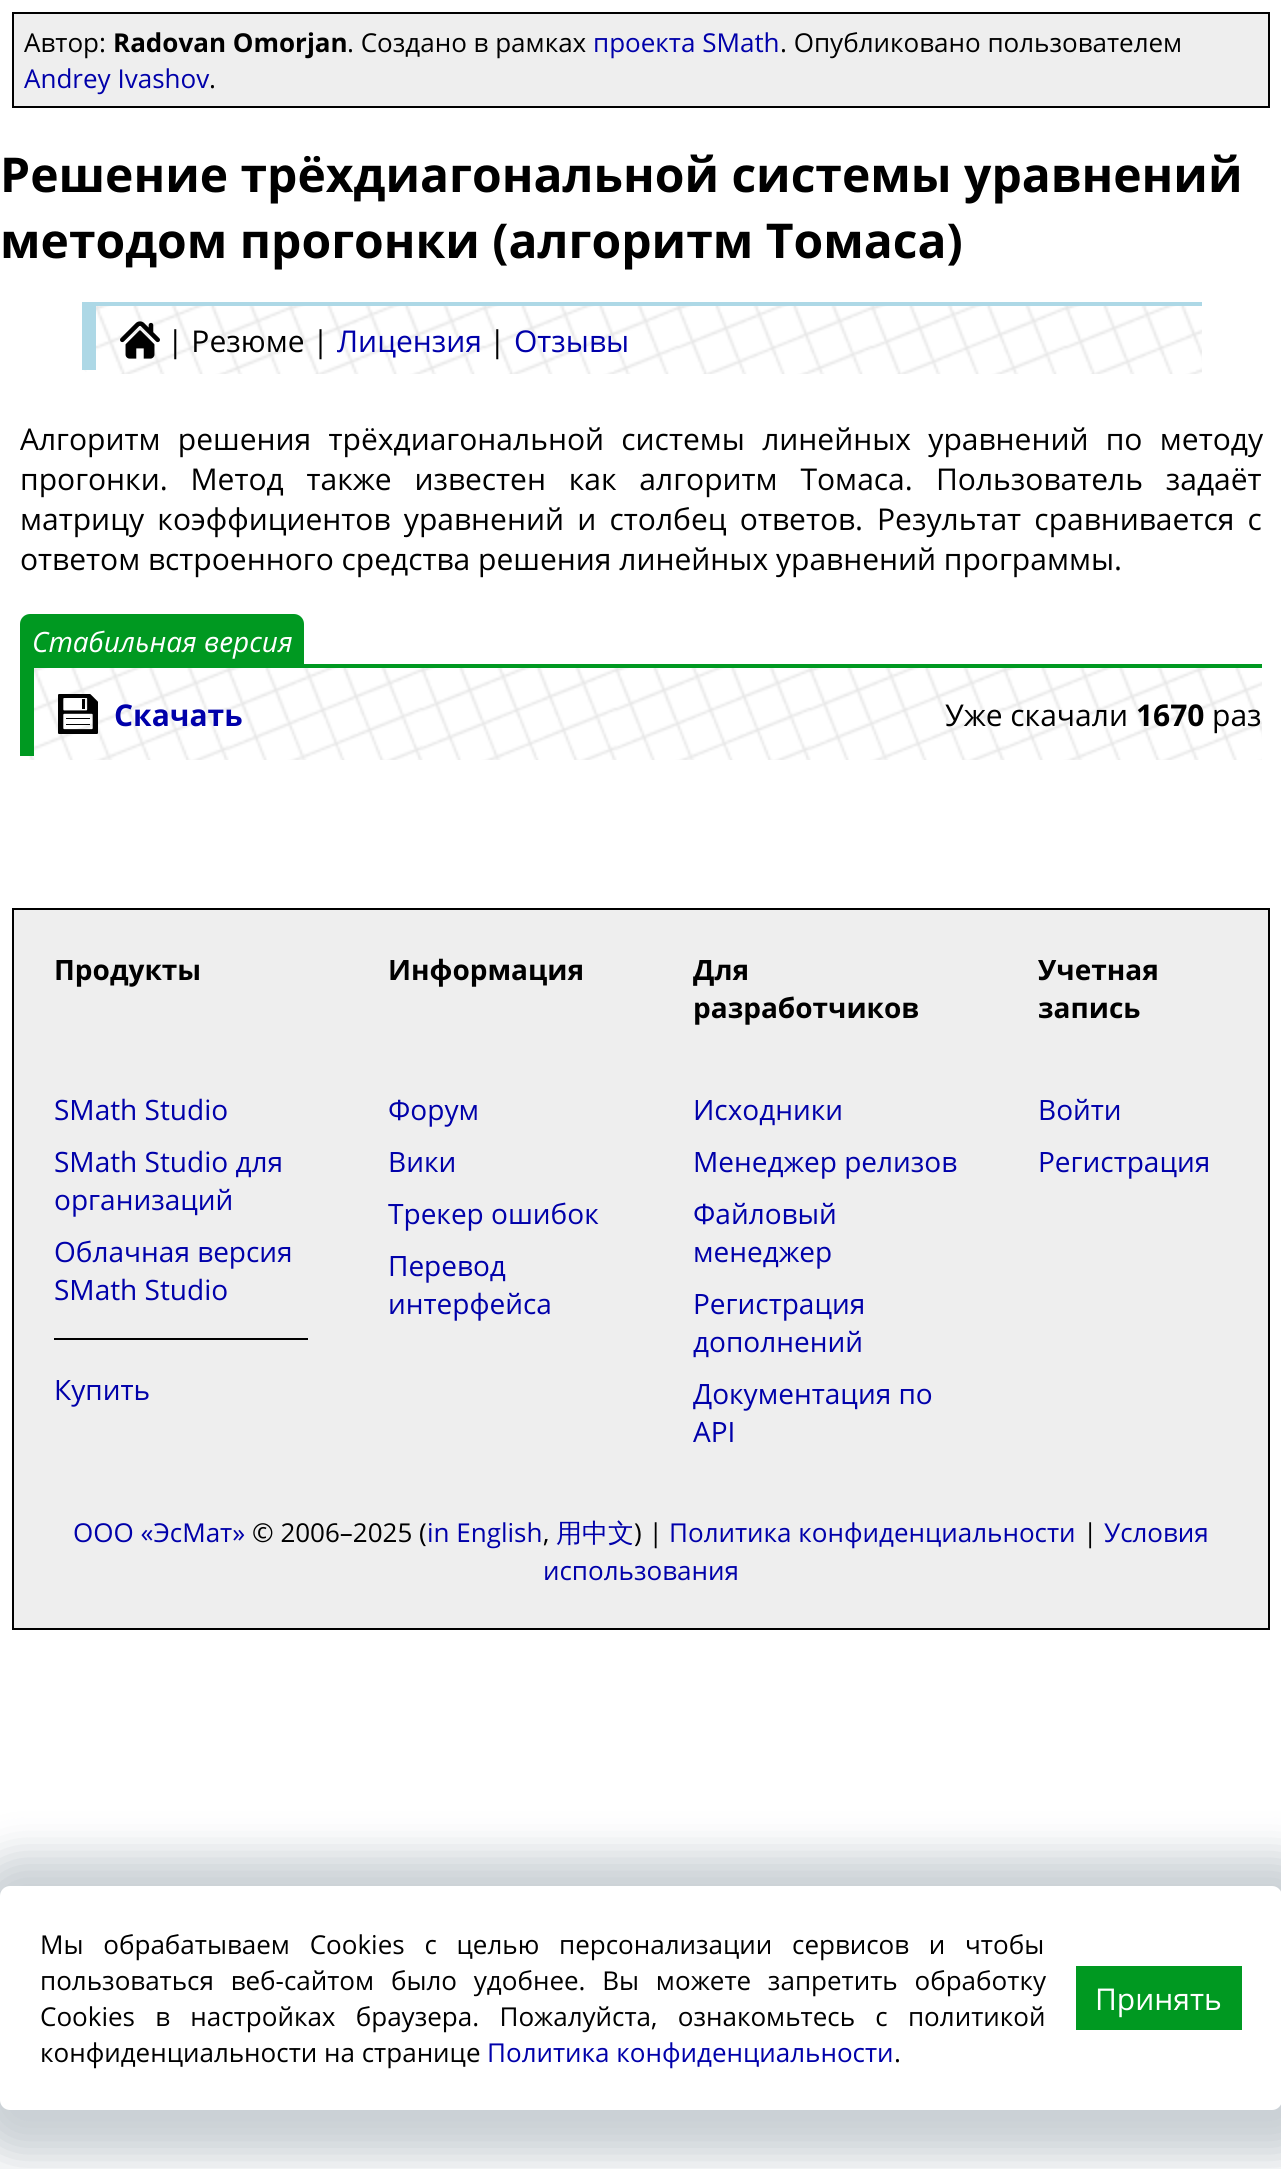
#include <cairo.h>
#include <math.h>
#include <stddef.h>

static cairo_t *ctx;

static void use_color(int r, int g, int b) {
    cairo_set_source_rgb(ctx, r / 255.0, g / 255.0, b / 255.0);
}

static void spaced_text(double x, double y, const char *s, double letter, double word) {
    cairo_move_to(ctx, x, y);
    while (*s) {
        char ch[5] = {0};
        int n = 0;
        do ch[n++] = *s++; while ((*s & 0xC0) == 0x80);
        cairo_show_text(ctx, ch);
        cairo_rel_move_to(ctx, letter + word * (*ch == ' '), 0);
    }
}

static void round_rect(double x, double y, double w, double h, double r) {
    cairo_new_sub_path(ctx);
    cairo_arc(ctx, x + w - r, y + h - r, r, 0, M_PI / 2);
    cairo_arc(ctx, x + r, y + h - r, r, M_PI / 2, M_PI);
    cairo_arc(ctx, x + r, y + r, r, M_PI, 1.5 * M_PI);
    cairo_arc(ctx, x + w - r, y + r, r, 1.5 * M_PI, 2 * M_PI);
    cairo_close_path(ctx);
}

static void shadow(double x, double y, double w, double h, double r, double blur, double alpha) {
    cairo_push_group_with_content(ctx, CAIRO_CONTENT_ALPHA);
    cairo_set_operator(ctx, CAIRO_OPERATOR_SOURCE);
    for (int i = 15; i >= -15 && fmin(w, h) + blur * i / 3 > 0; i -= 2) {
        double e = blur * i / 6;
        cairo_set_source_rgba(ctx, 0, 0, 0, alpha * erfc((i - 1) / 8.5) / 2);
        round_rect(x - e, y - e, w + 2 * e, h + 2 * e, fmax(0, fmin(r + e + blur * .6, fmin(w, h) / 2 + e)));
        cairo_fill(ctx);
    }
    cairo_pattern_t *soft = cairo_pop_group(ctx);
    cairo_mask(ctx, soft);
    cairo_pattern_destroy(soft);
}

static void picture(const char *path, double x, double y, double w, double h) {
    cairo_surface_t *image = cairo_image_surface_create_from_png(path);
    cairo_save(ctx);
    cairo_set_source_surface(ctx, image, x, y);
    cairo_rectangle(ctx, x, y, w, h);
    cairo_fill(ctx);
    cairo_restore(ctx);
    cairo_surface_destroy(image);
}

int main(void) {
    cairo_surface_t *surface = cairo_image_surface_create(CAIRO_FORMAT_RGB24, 1281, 2169);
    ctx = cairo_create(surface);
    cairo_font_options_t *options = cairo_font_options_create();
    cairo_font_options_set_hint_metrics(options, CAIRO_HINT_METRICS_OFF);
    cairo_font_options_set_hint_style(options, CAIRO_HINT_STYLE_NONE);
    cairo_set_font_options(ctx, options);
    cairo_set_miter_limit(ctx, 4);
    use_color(255, 255, 255);
    cairo_paint(ctx);
    use_color(238, 238, 238);
    cairo_rectangle(ctx, 13, 13, 1256, 94);
    cairo_fill_preserve(ctx);
    use_color(0, 0, 0);
    cairo_stroke(ctx);
    cairo_select_font_face(ctx, "Open Sans", CAIRO_FONT_SLANT_NORMAL, CAIRO_FONT_WEIGHT_NORMAL);
    cairo_set_font_size(ctx, 26);
    cairo_move_to(ctx, 24, 52);
    cairo_show_text(ctx, "Автор:");
    cairo_select_font_face(ctx, "Open Sans", CAIRO_FONT_SLANT_NORMAL, CAIRO_FONT_WEIGHT_BOLD);
    cairo_move_to(ctx, 113, 52);
    cairo_show_text(ctx, "Radovan Omorjan");
    cairo_select_font_face(ctx, "Open Sans", CAIRO_FONT_SLANT_NORMAL, CAIRO_FONT_WEIGHT_NORMAL);
    cairo_move_to(ctx, 347, 52);
    cairo_show_text(ctx, ". Создано в рамках");
    use_color(0, 0, 170);
    cairo_move_to(ctx, 593, 52);
    cairo_show_text(ctx, "проекта SMath");
    use_color(0, 0, 0);
    cairo_move_to(ctx, 780, 52);
    cairo_show_text(ctx, ". Опубликовано пользователем");
    use_color(0, 0, 170);
    cairo_move_to(ctx, 24, 88);
    cairo_show_text(ctx, "Andrey Ivashov");
    use_color(0, 0, 0);
    cairo_move_to(ctx, 209, 88);
    cairo_show_text(ctx, ".");
    cairo_select_font_face(ctx, "Open Sans", CAIRO_FONT_SLANT_NORMAL, CAIRO_FONT_WEIGHT_BOLD);
    cairo_set_font_size(ctx, 48);
    cairo_move_to(ctx, 0, 192);
    cairo_show_text(ctx, "Решение трёхдиагональной системы уравнений");
    cairo_move_to(ctx, 0, 258);
    cairo_show_text(ctx, "методом прогонки (алгоритм Томаса)");
    picture("img1.png", 84, 306, 1118, 68);
    use_color(173, 216, 230);
    cairo_rectangle(ctx, 96, 302, 1106, 4);
    cairo_fill(ctx);
    cairo_rectangle(ctx, 82, 302, 14, 68);
    cairo_fill(ctx);
    picture("img2.png", 120, 321, 40, 38);
    cairo_select_font_face(ctx, "Open Sans", CAIRO_FONT_SLANT_NORMAL, CAIRO_FONT_WEIGHT_NORMAL);
    cairo_set_font_size(ctx, 30);
    use_color(0, 0, 0);
    cairo_move_to(ctx, 167, 352);
    cairo_show_text(ctx, "| Резюме |");
    use_color(0, 0, 170);
    cairo_move_to(ctx, 337, 352);
    cairo_show_text(ctx, "Лицензия");
    use_color(0, 0, 0);
    cairo_move_to(ctx, 489, 352);
    cairo_show_text(ctx, "|");
    use_color(0, 0, 170);
    cairo_move_to(ctx, 514, 352);
    cairo_show_text(ctx, "Отзывы");
    use_color(0, 0, 0);
    spaced_text(20, 450, "Алгоритм решения трёхдиагональной системы линейных уравнений по методу", 0, 9.5);
    spaced_text(20, 490, "прогонки. Метод также известен как алгоритм Томаса.", 0, 15);
    spaced_text(936, 490, "Пользователь задаёт", 0, 15);
    spaced_text(20, 530, "матрицу коэффициентов уравнений и столбец ответов.", 0, 5.5);
    spaced_text(877, 530, "Результат сравнивается с", 0, 5.5);
    cairo_move_to(ctx, 20, 570);
    cairo_show_text(ctx, "ответом встроенного средства решения линейных уравнений программы.");
    use_color(0, 153, 33);
    cairo_new_path(ctx);
    cairo_move_to(ctx, 30, 614);
    cairo_line_to(ctx, 294, 614);
    cairo_curve_to(ctx, 299.5, 614, 304, 618.5, 304, 624);
    cairo_line_to(ctx, 304, 668);
    cairo_line_to(ctx, 20, 668);
    cairo_line_to(ctx, 20, 624);
    cairo_curve_to(ctx, 20, 618.5, 24.5, 614, 30, 614);
    cairo_close_path(ctx);
    cairo_fill(ctx);
    cairo_select_font_face(ctx, "Open Sans", CAIRO_FONT_SLANT_ITALIC, CAIRO_FONT_WEIGHT_NORMAL);
    cairo_set_font_size(ctx, 28);
    use_color(255, 255, 255);
    cairo_move_to(ctx, 32, 652);
    cairo_show_text(ctx, "Стабильная версия");
    picture("img3.png", 22, 668, 1240, 92);
    use_color(0, 153, 33);
    cairo_rectangle(ctx, 304, 664, 958, 4);
    cairo_fill(ctx);
    cairo_rectangle(ctx, 20, 668, 14, 88);
    cairo_fill(ctx);
    picture("img4.png", 58, 694, 40, 40);
    cairo_select_font_face(ctx, "Open Sans", CAIRO_FONT_SLANT_NORMAL, CAIRO_FONT_WEIGHT_BOLD);
    cairo_set_font_size(ctx, 30);
    use_color(0, 0, 170);
    cairo_move_to(ctx, 114, 726);
    cairo_show_text(ctx, "Скачать");
    cairo_select_font_face(ctx, "Open Sans", CAIRO_FONT_SLANT_NORMAL, CAIRO_FONT_WEIGHT_NORMAL);
    use_color(0, 0, 0);
    cairo_move_to(ctx, 945, 726);
    cairo_show_text(ctx, "Уже скачали");
    cairo_select_font_face(ctx, "Open Sans", CAIRO_FONT_SLANT_NORMAL, CAIRO_FONT_WEIGHT_BOLD);
    cairo_move_to(ctx, 1136, 726);
    cairo_show_text(ctx, "1670");
    cairo_select_font_face(ctx, "Open Sans", CAIRO_FONT_SLANT_NORMAL, CAIRO_FONT_WEIGHT_NORMAL);
    cairo_move_to(ctx, 1212, 726);
    cairo_show_text(ctx, "раз");
    use_color(34, 60, 80);
    shadow(-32, 1854, 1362, 304, 50, 20, 0.24);
    use_color(255, 255, 255);
    round_rect(0, 1886, 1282, 224, 10);
    cairo_fill(ctx);
    cairo_set_font_size(ctx, 26);
    use_color(0, 0, 0);
    spaced_text(40, 1954, "Мы обрабатываем Cookies с целью персонализации сервисов и чтобы", 0, 13);
    spaced_text(40, 1990, "пользоваться веб-сайтом было удобнее. Вы можете запретить обработку", 0, 10);
    spaced_text(40, 2026, "Cookies в настройках браузера. Пожалуйста, ознакомьтесь с политикой", 0, 13.5);
    cairo_move_to(ctx, 40, 2062);
    cairo_show_text(ctx, "конфиденциальности на странице");
    use_color(0, 0, 170);
    cairo_move_to(ctx, 487, 2062);
    cairo_show_text(ctx, "Политика конфиденциальности");
    use_color(0, 0, 0);
    cairo_move_to(ctx, 894, 2062);
    cairo_show_text(ctx, ".");
    use_color(0, 153, 33);
    cairo_rectangle(ctx, 1076, 1966, 166, 64);
    cairo_fill(ctx);
    cairo_set_font_size(ctx, 30);
    use_color(255, 255, 255);
    cairo_move_to(ctx, 1095, 2010);
    cairo_show_text(ctx, "Принять");
    use_color(238, 238, 238);
    cairo_rectangle(ctx, 13, 909, 1256, 720);
    cairo_fill_preserve(ctx);
    use_color(0, 0, 0);
    cairo_stroke(ctx);
    cairo_select_font_face(ctx, "Open Sans", CAIRO_FONT_SLANT_NORMAL, CAIRO_FONT_WEIGHT_BOLD);
    cairo_set_font_size(ctx, 28);
    cairo_move_to(ctx, 54, 980);
    cairo_show_text(ctx, "Продукты");
    cairo_move_to(ctx, 388, 980);
    cairo_show_text(ctx, "Информация");
    cairo_move_to(ctx, 693, 980);
    cairo_show_text(ctx, "Для");
    cairo_move_to(ctx, 693, 1018);
    cairo_show_text(ctx, "разработчиков");
    cairo_move_to(ctx, 1038, 980);
    cairo_show_text(ctx, "Учетная");
    cairo_move_to(ctx, 1038, 1018);
    cairo_show_text(ctx, "запись");
    cairo_select_font_face(ctx, "Open Sans", CAIRO_FONT_SLANT_NORMAL, CAIRO_FONT_WEIGHT_NORMAL);
    use_color(0, 0, 170);
    cairo_move_to(ctx, 54, 1120);
    cairo_show_text(ctx, "SMath Studio");
    cairo_move_to(ctx, 54, 1172);
    cairo_show_text(ctx, "SMath Studio для");
    cairo_move_to(ctx, 54, 1210);
    cairo_show_text(ctx, "организаций");
    cairo_move_to(ctx, 54, 1262);
    cairo_show_text(ctx, "Облачная версия");
    cairo_move_to(ctx, 54, 1300);
    cairo_show_text(ctx, "SMath Studio");
    use_color(0, 0, 0);
    cairo_rectangle(ctx, 54, 1338, 254, 2);
    cairo_fill(ctx);
    use_color(0, 0, 170);
    cairo_move_to(ctx, 54, 1400);
    cairo_show_text(ctx, "Купить");
    cairo_move_to(ctx, 388, 1120);
    cairo_show_text(ctx, "Форум");
    cairo_move_to(ctx, 388, 1172);
    cairo_show_text(ctx, "Вики");
    cairo_move_to(ctx, 388, 1224);
    cairo_show_text(ctx, "Трекер ошибок");
    cairo_move_to(ctx, 388, 1276);
    cairo_show_text(ctx, "Перевод");
    cairo_move_to(ctx, 388, 1314);
    cairo_show_text(ctx, "интерфейса");
    cairo_move_to(ctx, 693, 1120);
    cairo_show_text(ctx, "Исходники");
    cairo_move_to(ctx, 693, 1172);
    cairo_show_text(ctx, "Менеджер релизов");
    cairo_move_to(ctx, 693, 1224);
    cairo_show_text(ctx, "Файловый");
    cairo_move_to(ctx, 693, 1262);
    cairo_show_text(ctx, "менеджер");
    cairo_move_to(ctx, 693, 1314);
    cairo_show_text(ctx, "Регистрация");
    cairo_move_to(ctx, 693, 1352);
    cairo_show_text(ctx, "дополнений");
    cairo_move_to(ctx, 693, 1404);
    cairo_show_text(ctx, "Документация по");
    cairo_move_to(ctx, 693, 1442);
    cairo_show_text(ctx, "API");
    cairo_move_to(ctx, 1038, 1120);
    cairo_show_text(ctx, "Войти");
    cairo_move_to(ctx, 1038, 1172);
    cairo_show_text(ctx, "Регистрация");
    cairo_set_font_size(ctx, 26);
    cairo_move_to(ctx, 73, 1542);
    cairo_show_text(ctx, "ООО «ЭсМат»");
    use_color(0, 0, 0);
    cairo_move_to(ctx, 252, 1542);
    cairo_show_text(ctx, "© 2006–2025 (");
    use_color(0, 0, 170);
    cairo_move_to(ctx, 427, 1542);
    cairo_show_text(ctx, "in English");
    use_color(0, 0, 0);
    cairo_move_to(ctx, 543, 1542);
    cairo_show_text(ctx, ",");
    cairo_select_font_face(ctx, "WenQuanYi Zen Hei Medium", CAIRO_FONT_SLANT_NORMAL, CAIRO_FONT_WEIGHT_NORMAL);
    use_color(0, 0, 170);
    cairo_move_to(ctx, 556, 1542);
    cairo_show_text(ctx, "用中文");
    cairo_select_font_face(ctx, "Open Sans", CAIRO_FONT_SLANT_NORMAL, CAIRO_FONT_WEIGHT_NORMAL);
    use_color(0, 0, 0);
    cairo_move_to(ctx, 634, 1542);
    cairo_show_text(ctx, ") |");
    use_color(0, 0, 170);
    cairo_move_to(ctx, 669, 1542);
    cairo_show_text(ctx, "Политика конфиденциальности");
    use_color(0, 0, 0);
    cairo_move_to(ctx, 1083, 1542);
    cairo_show_text(ctx, "|");
    use_color(0, 0, 170);
    cairo_move_to(ctx, 1104, 1542);
    cairo_show_text(ctx, "Условия");
    cairo_move_to(ctx, 543, 1580);
    cairo_show_text(ctx, "использования");
    cairo_surface_write_to_png(surface, "result.png");
    cairo_font_options_destroy(options);
    cairo_destroy(ctx);
    cairo_surface_destroy(surface);
    return 0;
}
